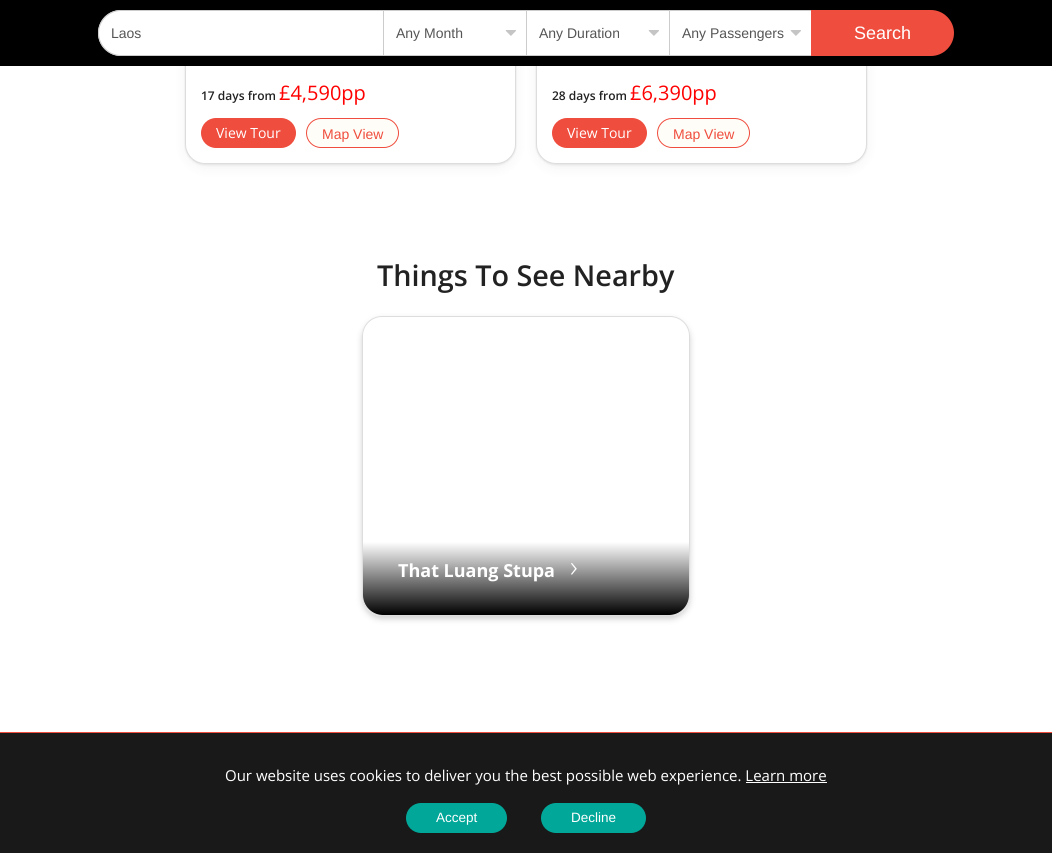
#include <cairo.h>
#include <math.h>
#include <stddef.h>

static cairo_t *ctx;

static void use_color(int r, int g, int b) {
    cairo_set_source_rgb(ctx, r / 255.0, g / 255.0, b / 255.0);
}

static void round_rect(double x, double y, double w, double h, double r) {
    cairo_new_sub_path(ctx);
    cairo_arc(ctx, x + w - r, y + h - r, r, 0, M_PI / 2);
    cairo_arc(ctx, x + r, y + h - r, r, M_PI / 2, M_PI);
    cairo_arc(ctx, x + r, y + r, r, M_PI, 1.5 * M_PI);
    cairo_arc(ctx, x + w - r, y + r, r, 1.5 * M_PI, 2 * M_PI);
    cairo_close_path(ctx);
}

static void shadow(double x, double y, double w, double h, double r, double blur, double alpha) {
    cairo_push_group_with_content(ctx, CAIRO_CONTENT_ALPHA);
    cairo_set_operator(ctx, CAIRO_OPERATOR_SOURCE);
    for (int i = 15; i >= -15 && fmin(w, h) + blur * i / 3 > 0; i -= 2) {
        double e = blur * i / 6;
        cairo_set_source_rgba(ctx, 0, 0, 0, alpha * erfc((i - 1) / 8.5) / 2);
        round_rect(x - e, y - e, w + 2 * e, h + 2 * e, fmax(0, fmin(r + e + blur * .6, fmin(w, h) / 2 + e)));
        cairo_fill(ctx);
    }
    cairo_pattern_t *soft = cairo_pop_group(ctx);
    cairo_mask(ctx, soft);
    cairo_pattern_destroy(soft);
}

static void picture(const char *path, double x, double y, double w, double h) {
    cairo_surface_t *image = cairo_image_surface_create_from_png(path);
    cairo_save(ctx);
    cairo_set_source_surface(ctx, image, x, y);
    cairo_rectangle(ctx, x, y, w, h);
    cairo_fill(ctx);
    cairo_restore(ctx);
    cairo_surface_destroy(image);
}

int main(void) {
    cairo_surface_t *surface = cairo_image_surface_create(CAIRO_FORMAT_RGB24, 1052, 853);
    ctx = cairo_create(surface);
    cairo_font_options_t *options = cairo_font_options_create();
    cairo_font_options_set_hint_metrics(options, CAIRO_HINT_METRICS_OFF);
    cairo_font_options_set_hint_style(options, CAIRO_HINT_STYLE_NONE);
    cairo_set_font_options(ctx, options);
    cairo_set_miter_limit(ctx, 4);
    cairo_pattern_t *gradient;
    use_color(255, 255, 255);
    cairo_paint(ctx);
    use_color(0, 0, 0);
    shadow(185, -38, 331, 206, 20, 6, 0.05);
    shadow(185, -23, 331, 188, 20, 1, 0.08);
    use_color(255, 255, 255);
    round_rect(185.5, -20.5, 330, 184, 19.5);
    cairo_fill_preserve(ctx);
    use_color(221, 221, 221);
    cairo_set_line_width(ctx, 1);
    cairo_stroke(ctx);
    use_color(0, 0, 0);
    shadow(536, -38, 331, 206, 20, 6, 0.05);
    shadow(536, -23, 331, 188, 20, 1, 0.08);
    use_color(255, 255, 255);
    round_rect(536.5, -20.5, 330, 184, 19.5);
    cairo_fill_preserve(ctx);
    use_color(221, 221, 221);
    cairo_stroke(ctx);
    use_color(0, 0, 0);
    cairo_rectangle(ctx, 0, 0, 1052, 66);
    cairo_fill(ctx);
    use_color(255, 255, 255);
    cairo_new_path(ctx);
    cairo_move_to(ctx, 121, 10);
    cairo_line_to(ctx, 383, 10);
    cairo_line_to(ctx, 383, 56);
    cairo_line_to(ctx, 121, 56);
    cairo_curve_to(ctx, 108.5, 56, 98, 45.5, 98, 33);
    cairo_curve_to(ctx, 98, 20.5, 108.5, 10, 121, 10);
    cairo_close_path(ctx);
    cairo_fill(ctx);
    use_color(204, 204, 204);
    cairo_set_fill_rule(ctx, CAIRO_FILL_RULE_EVEN_ODD);
    cairo_new_path(ctx);
    cairo_move_to(ctx, 121, 10);
    cairo_line_to(ctx, 383, 10);
    cairo_line_to(ctx, 383, 56);
    cairo_line_to(ctx, 121, 56);
    cairo_curve_to(ctx, 108, 56, 98, 46, 98, 33);
    cairo_curve_to(ctx, 98, 20, 108, 10, 121, 10);
    cairo_close_path(ctx);
    cairo_move_to(ctx, 121, 11);
    cairo_line_to(ctx, 383, 11);
    cairo_line_to(ctx, 383, 55);
    cairo_line_to(ctx, 121, 55);
    cairo_curve_to(ctx, 109, 55, 99, 45, 99, 33);
    cairo_curve_to(ctx, 99, 21, 109, 11, 121, 11);
    cairo_close_path(ctx);
    cairo_fill(ctx);
    cairo_select_font_face(ctx, "Liberation Sans", CAIRO_FONT_SLANT_NORMAL, CAIRO_FONT_WEIGHT_NORMAL);
    cairo_set_font_size(ctx, 14);
    use_color(85, 85, 85);
    cairo_move_to(ctx, 111, 38);
    cairo_show_text(ctx, "Laos");
    use_color(255, 255, 255);
    cairo_rectangle(ctx, 384, 11, 142, 44);
    cairo_fill(ctx);
    picture("img1.png", 505, 30, 11, 6);
    use_color(204, 204, 204);
    cairo_rectangle(ctx, 383, 10, 428, 1);
    cairo_fill(ctx);
    cairo_rectangle(ctx, 383, 55, 428, 1);
    cairo_fill(ctx);
    cairo_rectangle(ctx, 383, 10, 1, 46);
    cairo_fill(ctx);
    use_color(85, 85, 85);
    cairo_move_to(ctx, 396, 38);
    cairo_show_text(ctx, "Any Month");
    use_color(255, 255, 255);
    cairo_rectangle(ctx, 527, 11, 142, 44);
    cairo_fill(ctx);
    picture("img1.png", 648, 30, 11, 6);
    use_color(204, 204, 204);
    cairo_rectangle(ctx, 526, 10, 1, 46);
    cairo_fill(ctx);
    use_color(85, 85, 85);
    cairo_move_to(ctx, 539, 38);
    cairo_show_text(ctx, "Any Duration");
    use_color(255, 255, 255);
    cairo_rectangle(ctx, 670, 11, 141, 44);
    cairo_fill(ctx);
    picture("img1.png", 790, 30, 11, 6);
    use_color(204, 204, 204);
    cairo_rectangle(ctx, 669, 10, 1, 46);
    cairo_fill(ctx);
    use_color(85, 85, 85);
    cairo_move_to(ctx, 682, 38);
    cairo_show_text(ctx, "Any Passengers");
    use_color(239, 77, 62);
    cairo_new_path(ctx);
    cairo_move_to(ctx, 811, 10);
    cairo_line_to(ctx, 931, 10);
    cairo_curve_to(ctx, 943.5, 10, 954, 20.5, 954, 33);
    cairo_curve_to(ctx, 954, 45.5, 943.5, 56, 931, 56);
    cairo_line_to(ctx, 811, 56);
    cairo_close_path(ctx);
    cairo_fill(ctx);
    cairo_set_font_size(ctx, 18);
    use_color(255, 255, 255);
    cairo_move_to(ctx, 854, 39);
    cairo_show_text(ctx, "Search");
    cairo_select_font_face(ctx, "Open Sans SemiBold", CAIRO_FONT_SLANT_NORMAL, CAIRO_FONT_WEIGHT_NORMAL);
    cairo_set_font_size(ctx, 12);
    use_color(34, 34, 34);
    cairo_move_to(ctx, 201, 100);
    cairo_show_text(ctx, "17 days from");
    cairo_select_font_face(ctx, "Open Sans", CAIRO_FONT_SLANT_NORMAL, CAIRO_FONT_WEIGHT_NORMAL);
    cairo_set_font_size(ctx, 20);
    use_color(255, 0, 0);
    cairo_move_to(ctx, 279, 100);
    cairo_show_text(ctx, "£4,590pp");
    use_color(239, 77, 62);
    round_rect(201, 118, 95, 30, 15);
    cairo_fill(ctx);
    cairo_set_font_size(ctx, 14);
    use_color(255, 255, 255);
    cairo_move_to(ctx, 216, 138);
    cairo_show_text(ctx, "View Tour");
    use_color(255, 253, 247);
    round_rect(306.5, 118.5, 92, 29, 14.5);
    cairo_fill_preserve(ctx);
    use_color(239, 77, 62);
    cairo_stroke(ctx);
    cairo_select_font_face(ctx, "Liberation Sans", CAIRO_FONT_SLANT_NORMAL, CAIRO_FONT_WEIGHT_NORMAL);
    cairo_move_to(ctx, 322, 139);
    cairo_show_text(ctx, "Map View");
    cairo_select_font_face(ctx, "Open Sans SemiBold", CAIRO_FONT_SLANT_NORMAL, CAIRO_FONT_WEIGHT_NORMAL);
    cairo_set_font_size(ctx, 12);
    use_color(34, 34, 34);
    cairo_move_to(ctx, 552, 100);
    cairo_show_text(ctx, "28 days from");
    cairo_select_font_face(ctx, "Open Sans", CAIRO_FONT_SLANT_NORMAL, CAIRO_FONT_WEIGHT_NORMAL);
    cairo_set_font_size(ctx, 20);
    use_color(255, 0, 0);
    cairo_move_to(ctx, 630, 100);
    cairo_show_text(ctx, "£6,390pp");
    use_color(239, 77, 62);
    round_rect(552, 118, 95, 30, 15);
    cairo_fill(ctx);
    cairo_set_font_size(ctx, 14);
    use_color(255, 255, 255);
    cairo_move_to(ctx, 567, 138);
    cairo_show_text(ctx, "View Tour");
    use_color(255, 253, 247);
    round_rect(657.5, 118.5, 92, 29, 14.5);
    cairo_fill_preserve(ctx);
    use_color(239, 77, 62);
    cairo_stroke(ctx);
    cairo_select_font_face(ctx, "Liberation Sans", CAIRO_FONT_SLANT_NORMAL, CAIRO_FONT_WEIGHT_NORMAL);
    cairo_move_to(ctx, 673, 139);
    cairo_show_text(ctx, "Map View");
    cairo_select_font_face(ctx, "Open Sans SemiBold", CAIRO_FONT_SLANT_NORMAL, CAIRO_FONT_WEIGHT_NORMAL);
    cairo_set_font_size(ctx, 28.75);
    use_color(34, 34, 34);
    cairo_move_to(ctx, 377, 286);
    cairo_show_text(ctx, "Things To See Nearby");
    cairo_save(ctx);
    cairo_new_path(ctx);
    cairo_move_to(ctx, 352, 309);
    cairo_line_to(ctx, 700, 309);
    cairo_line_to(ctx, 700, 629);
    cairo_line_to(ctx, 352, 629);
    cairo_close_path(ctx);
    cairo_move_to(ctx, 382, 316);
    cairo_line_to(ctx, 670, 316);
    cairo_curve_to(ctx, 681, 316, 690, 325, 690, 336);
    cairo_line_to(ctx, 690, 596);
    cairo_curve_to(ctx, 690, 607, 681, 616, 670, 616);
    cairo_line_to(ctx, 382, 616);
    cairo_curve_to(ctx, 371, 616, 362, 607, 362, 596);
    cairo_line_to(ctx, 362, 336);
    cairo_curve_to(ctx, 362, 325, 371, 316, 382, 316);
    cairo_close_path(ctx);
    cairo_clip(ctx);
    use_color(0, 0, 0);
    shadow(362, 319, 328, 300, 20, 3, 0.18);
    cairo_restore(ctx);
    round_rect(362.5, 316.5, 327, 299, 19.5);
    use_color(221, 221, 221);
    cairo_stroke(ctx);
    gradient = cairo_pattern_create_linear(526, 532, 526, 615);
    cairo_pattern_add_color_stop_rgba(gradient, 0.12, 0, 0, 0, 0);
    cairo_pattern_add_color_stop_rgba(gradient, 1, 0, 0, 0, 1);
    cairo_set_source(ctx, gradient);
    cairo_pattern_destroy(gradient);
    cairo_new_path(ctx);
    cairo_move_to(ctx, 363, 532);
    cairo_line_to(ctx, 689, 532);
    cairo_line_to(ctx, 689, 595);
    cairo_curve_to(ctx, 689, 606, 680, 615, 669, 615);
    cairo_line_to(ctx, 383, 615);
    cairo_curve_to(ctx, 372, 615, 363, 606, 363, 595);
    cairo_close_path(ctx);
    cairo_fill(ctx);
    cairo_select_font_face(ctx, "Open Sans", CAIRO_FONT_SLANT_NORMAL, CAIRO_FONT_WEIGHT_BOLD);
    cairo_set_font_size(ctx, 18);
    use_color(255, 255, 255);
    cairo_move_to(ctx, 398, 577);
    cairo_show_text(ctx, "That Luang Stupa");
    cairo_select_font_face(ctx, "Open Sans Light", CAIRO_FONT_SLANT_NORMAL, CAIRO_FONT_WEIGHT_NORMAL);
    cairo_set_font_size(ctx, 30);
    cairo_move_to(ctx, 570, 577);
    cairo_show_text(ctx, "›");
    cairo_set_source_rgba(ctx, 0, 0, 0, 0.9);
    cairo_rectangle(ctx, 0, 733, 1052, 120);
    cairo_fill(ctx);
    use_color(239, 77, 62);
    cairo_rectangle(ctx, 0, 732, 1052, 1);
    cairo_fill(ctx);
    cairo_select_font_face(ctx, "Open Sans", CAIRO_FONT_SLANT_NORMAL, CAIRO_FONT_WEIGHT_NORMAL);
    cairo_set_font_size(ctx, 15);
    use_color(255, 255, 255);
    cairo_move_to(ctx, 225, 781);
    cairo_show_text(ctx, "Our website uses cookies to deliver you the best possible web experience. Learn more");
    cairo_rectangle(ctx, 746, 782, 81, 1);
    cairo_fill(ctx);
    use_color(1, 167, 153);
    round_rect(406, 803, 101, 30, 15);
    cairo_fill(ctx);
    cairo_select_font_face(ctx, "Liberation Sans", CAIRO_FONT_SLANT_NORMAL, CAIRO_FONT_WEIGHT_NORMAL);
    cairo_set_font_size(ctx, 13.5);
    use_color(255, 255, 255);
    cairo_move_to(ctx, 436, 822);
    cairo_show_text(ctx, "Accept");
    use_color(1, 167, 153);
    round_rect(541, 803, 105, 30, 15);
    cairo_fill(ctx);
    use_color(255, 255, 255);
    cairo_move_to(ctx, 571, 822);
    cairo_show_text(ctx, "Decline");
    cairo_surface_write_to_png(surface, "result.png");
    cairo_font_options_destroy(options);
    cairo_destroy(ctx);
    cairo_surface_destroy(surface);
    return 0;
}
